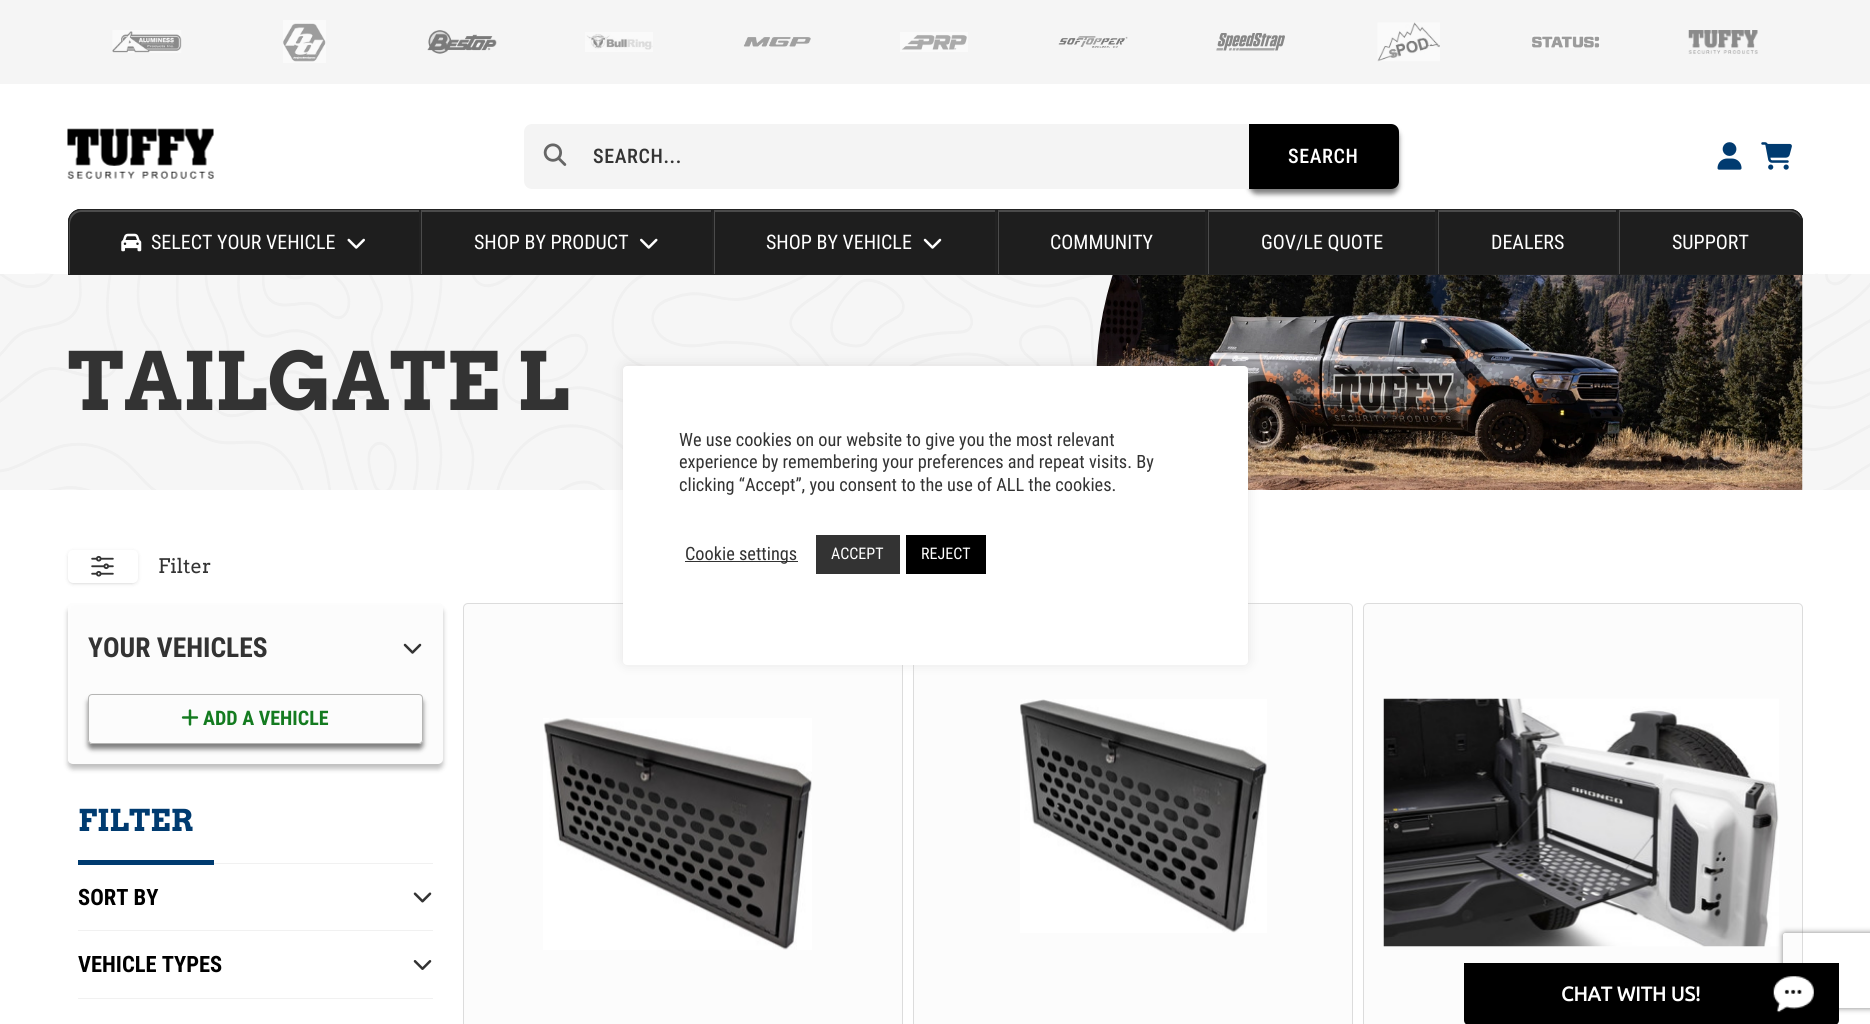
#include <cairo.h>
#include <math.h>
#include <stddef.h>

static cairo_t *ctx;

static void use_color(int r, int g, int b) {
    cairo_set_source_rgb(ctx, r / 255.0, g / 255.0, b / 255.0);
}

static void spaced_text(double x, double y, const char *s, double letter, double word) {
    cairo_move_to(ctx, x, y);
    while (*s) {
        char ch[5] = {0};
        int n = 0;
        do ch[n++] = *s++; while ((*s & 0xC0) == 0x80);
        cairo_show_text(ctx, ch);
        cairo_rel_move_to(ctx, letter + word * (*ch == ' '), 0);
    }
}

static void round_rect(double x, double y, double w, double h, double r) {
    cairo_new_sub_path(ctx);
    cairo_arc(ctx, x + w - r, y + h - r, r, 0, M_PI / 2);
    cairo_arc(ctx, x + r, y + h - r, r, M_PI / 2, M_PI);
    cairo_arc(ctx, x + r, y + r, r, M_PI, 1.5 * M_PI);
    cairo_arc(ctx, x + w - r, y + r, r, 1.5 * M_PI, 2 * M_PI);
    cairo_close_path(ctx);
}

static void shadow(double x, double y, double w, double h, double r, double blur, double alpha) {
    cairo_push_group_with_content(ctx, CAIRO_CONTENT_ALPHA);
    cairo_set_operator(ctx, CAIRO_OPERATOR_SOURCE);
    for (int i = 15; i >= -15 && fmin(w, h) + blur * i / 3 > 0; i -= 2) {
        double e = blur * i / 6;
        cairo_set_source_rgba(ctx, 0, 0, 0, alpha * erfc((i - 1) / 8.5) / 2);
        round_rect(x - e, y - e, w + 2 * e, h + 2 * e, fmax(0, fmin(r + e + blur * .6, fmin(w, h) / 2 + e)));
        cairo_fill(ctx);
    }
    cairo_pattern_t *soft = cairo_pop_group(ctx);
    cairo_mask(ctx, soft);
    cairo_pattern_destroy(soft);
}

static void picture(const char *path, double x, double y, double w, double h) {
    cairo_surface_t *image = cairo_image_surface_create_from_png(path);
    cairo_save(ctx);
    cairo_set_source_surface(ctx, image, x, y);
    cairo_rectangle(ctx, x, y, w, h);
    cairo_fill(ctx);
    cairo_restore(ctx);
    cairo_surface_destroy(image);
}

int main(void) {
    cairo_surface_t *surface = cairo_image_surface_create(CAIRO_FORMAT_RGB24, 1870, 1024);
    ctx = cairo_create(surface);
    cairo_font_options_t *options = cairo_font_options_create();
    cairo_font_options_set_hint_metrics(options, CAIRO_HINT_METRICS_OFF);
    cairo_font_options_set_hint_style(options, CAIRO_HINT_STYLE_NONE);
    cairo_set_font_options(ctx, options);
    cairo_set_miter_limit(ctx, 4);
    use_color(255, 255, 255);
    cairo_paint(ctx);
    use_color(245, 245, 245);
    cairo_rectangle(ctx, 0, 0, 1870, 84);
    cairo_fill(ctx);
    picture("img1.png", 112, 30, 70, 23);
    picture("img2.png", 283, 20, 43, 43);
    picture("img3.png", 427, 30, 70, 24);
    picture("img4.png", 585, 32, 68, 20);
    picture("img5.png", 743, 37, 68, 10);
    picture("img6.png", 900, 32, 68, 20);
    picture("img7.png", 1058, 36, 70, 12);
    picture("img8.png", 1216, 33, 69, 18);
    picture("img9.png", 1377, 22, 63, 40);
    picture("img10.png", 1532, 35, 68, 13);
    picture("img11.png", 1688, 30, 70, 24);
    picture("img12.png", 67, 128, 147, 51);
    use_color(0, 0, 0);
    shadow(1249, 129, 150, 65, 8, 2.5, 0.5);
    use_color(244, 244, 244);
    cairo_new_path(ctx);
    cairo_move_to(ctx, 532, 124);
    cairo_line_to(ctx, 1249, 124);
    cairo_line_to(ctx, 1249, 189);
    cairo_line_to(ctx, 532, 189);
    cairo_curve_to(ctx, 527.5, 189, 524, 185.5, 524, 181);
    cairo_line_to(ctx, 524, 132);
    cairo_curve_to(ctx, 524, 127.5, 527.5, 124, 532, 124);
    cairo_close_path(ctx);
    cairo_fill(ctx);
    picture("img13.png", 543, 143, 24, 23);
    cairo_select_font_face(ctx, "Roboto Condensed Medium", CAIRO_FONT_SLANT_NORMAL, CAIRO_FONT_WEIGHT_NORMAL);
    cairo_set_font_size(ctx, 20);
    use_color(51, 51, 51);
    spaced_text(593, 163, "SEARCH...", 0.6, 0);
    use_color(0, 0, 0);
    cairo_new_path(ctx);
    cairo_move_to(ctx, 1249, 124);
    cairo_line_to(ctx, 1391, 124);
    cairo_curve_to(ctx, 1395.5, 124, 1399, 127.5, 1399, 132);
    cairo_line_to(ctx, 1399, 181);
    cairo_curve_to(ctx, 1399, 185.5, 1395.5, 189, 1391, 189);
    cairo_line_to(ctx, 1249, 189);
    cairo_close_path(ctx);
    cairo_fill(ctx);
    use_color(255, 255, 255);
    spaced_text(1288, 163, "SEARCH", 0.6, 0);
    picture("img14.png", 1717, 142, 25, 28);
    picture("img15.png", 1761, 142, 31, 28);
    picture("img20.png", 35, 273, 1784, 1);
    use_color(246, 246, 246);
    cairo_rectangle(ctx, 0, 274, 1870, 216);
    cairo_fill(ctx);
    picture("img21.png", 0, 274, 1870, 216);
    use_color(26, 26, 26);
    cairo_new_path(ctx);
    cairo_move_to(ctx, 81, 209);
    cairo_line_to(ctx, 420, 209);
    cairo_line_to(ctx, 420, 275);
    cairo_line_to(ctx, 68, 275);
    cairo_line_to(ctx, 68, 222);
    cairo_curve_to(ctx, 68, 215, 74, 209, 81, 209);
    cairo_close_path(ctx);
    cairo_fill(ctx);
    cairo_set_source_rgba(ctx, 0.133, 0.133, 0.133, 0.25);
    cairo_new_path(ctx);
    cairo_move_to(ctx, 81, 209);
    cairo_line_to(ctx, 420, 209);
    cairo_line_to(ctx, 420, 275);
    cairo_line_to(ctx, 68, 275);
    cairo_line_to(ctx, 68, 222);
    cairo_curve_to(ctx, 68, 215, 74, 209, 81, 209);
    cairo_close_path(ctx);
    cairo_fill(ctx);
    cairo_new_path(ctx);
    cairo_move_to(ctx, 81, 209);
    cairo_line_to(ctx, 420, 209);
    cairo_line_to(ctx, 420, 275);
    cairo_line_to(ctx, 68, 275);
    cairo_line_to(ctx, 68, 222);
    cairo_curve_to(ctx, 68, 215, 74, 209, 81, 209);
    cairo_close_path(ctx);
    cairo_fill(ctx);
    cairo_new_path(ctx);
    cairo_move_to(ctx, 81, 209);
    cairo_line_to(ctx, 420, 209);
    cairo_line_to(ctx, 420, 275);
    cairo_line_to(ctx, 68, 275);
    cairo_line_to(ctx, 68, 222);
    cairo_curve_to(ctx, 68, 215, 74, 209, 81, 209);
    cairo_close_path(ctx);
    cairo_fill(ctx);
    cairo_new_path(ctx);
    cairo_move_to(ctx, 81, 209);
    cairo_line_to(ctx, 420, 209);
    cairo_line_to(ctx, 420, 275);
    cairo_line_to(ctx, 68, 275);
    cairo_line_to(ctx, 68, 222);
    cairo_curve_to(ctx, 68, 215, 74, 209, 81, 209);
    cairo_close_path(ctx);
    cairo_fill(ctx);
    use_color(76, 76, 76);
    cairo_new_path(ctx);
    cairo_move_to(ctx, 81, 212);
    cairo_line_to(ctx, 419, 212);
    cairo_line_to(ctx, 419, 210);
    cairo_line_to(ctx, 80, 210);
    cairo_curve_to(ctx, 74, 210, 69, 215, 69, 221);
    cairo_line_to(ctx, 69, 274);
    cairo_line_to(ctx, 70, 274);
    cairo_line_to(ctx, 70, 224);
    cairo_curve_to(ctx, 70, 218, 75, 212, 81, 212);
    cairo_close_path(ctx);
    cairo_fill(ctx);
    cairo_new_path(ctx);
    cairo_move_to(ctx, 81, 209.5);
    cairo_line_to(ctx, 419.5, 209.5);
    cairo_line_to(ctx, 419.5, 274.5);
    cairo_line_to(ctx, 68.5, 274.5);
    cairo_line_to(ctx, 68.5, 222);
    cairo_curve_to(ctx, 68.5, 215, 74, 209.5, 81, 209.5);
    cairo_close_path(ctx);
    use_color(34, 34, 34);
    cairo_set_line_width(ctx, 1);
    cairo_stroke(ctx);
    picture("img16.png", 121, 233, 21, 19);
    cairo_select_font_face(ctx, "Roboto Condensed", CAIRO_FONT_SLANT_NORMAL, CAIRO_FONT_WEIGHT_NORMAL);
    use_color(255, 255, 255);
    cairo_move_to(ctx, 151, 249);
    cairo_show_text(ctx, "SELECT YOUR VEHICLE");
    picture("img17.png", 347, 238, 18, 11);
    use_color(30, 30, 30);
    cairo_rectangle(ctx, 422, 210, 290, 64);
    cairo_fill(ctx);
    cairo_save(ctx);
    cairo_rectangle(ctx, 421, 210, 290, 64);
    cairo_clip(ctx);
    use_color(75, 75, 75);
    cairo_set_fill_rule(ctx, CAIRO_FILL_RULE_EVEN_ODD);
    cairo_new_path(ctx);
    cairo_move_to(ctx, 298, 86);
    cairo_line_to(ctx, 835, 86);
    cairo_line_to(ctx, 835, 398);
    cairo_line_to(ctx, 298, 398);
    cairo_close_path(ctx);
    cairo_move_to(ctx, 422, 212);
    cairo_line_to(ctx, 712, 212);
    cairo_line_to(ctx, 712, 276);
    cairo_line_to(ctx, 422, 276);
    cairo_close_path(ctx);
    cairo_fill(ctx);
    cairo_restore(ctx);
    cairo_rectangle(ctx, 420.5, 209.5, 292, 65);
    use_color(34, 34, 34);
    cairo_stroke(ctx);
    use_color(255, 255, 255);
    cairo_move_to(ctx, 474, 249);
    cairo_show_text(ctx, "SHOP BY PRODUCT");
    picture("img18.png", 640, 238, 18, 11);
    use_color(30, 30, 30);
    cairo_rectangle(ctx, 715, 212, 280, 62);
    cairo_fill(ctx);
    cairo_save(ctx);
    cairo_rectangle(ctx, 714, 210, 281, 64);
    cairo_clip(ctx);
    use_color(75, 75, 75);
    cairo_set_fill_rule(ctx, CAIRO_FILL_RULE_EVEN_ODD);
    cairo_new_path(ctx);
    cairo_move_to(ctx, 590, 86);
    cairo_line_to(ctx, 1119, 86);
    cairo_line_to(ctx, 1119, 398);
    cairo_line_to(ctx, 590, 398);
    cairo_close_path(ctx);
    cairo_move_to(ctx, 715, 212);
    cairo_line_to(ctx, 996, 212);
    cairo_line_to(ctx, 996, 276);
    cairo_line_to(ctx, 715, 276);
    cairo_close_path(ctx);
    cairo_fill(ctx);
    cairo_restore(ctx);
    cairo_rectangle(ctx, 713.5, 209.5, 282, 65);
    use_color(34, 34, 34);
    cairo_stroke(ctx);
    use_color(255, 255, 255);
    cairo_move_to(ctx, 766, 249);
    cairo_show_text(ctx, "SHOP BY VEHICLE");
    picture("img19.png", 923, 238, 19, 11);
    use_color(30, 30, 30);
    cairo_rectangle(ctx, 997, 210, 208, 64);
    cairo_fill(ctx);
    cairo_save(ctx);
    cairo_rectangle(ctx, 998, 210, 207, 64);
    cairo_clip(ctx);
    use_color(75, 75, 75);
    cairo_set_fill_rule(ctx, CAIRO_FILL_RULE_EVEN_ODD);
    cairo_new_path(ctx);
    cairo_move_to(ctx, 874, 86);
    cairo_line_to(ctx, 1329, 86);
    cairo_line_to(ctx, 1329, 398);
    cairo_line_to(ctx, 874, 398);
    cairo_close_path(ctx);
    cairo_move_to(ctx, 999, 212);
    cairo_line_to(ctx, 1206, 212);
    cairo_line_to(ctx, 1206, 276);
    cairo_line_to(ctx, 999, 276);
    cairo_close_path(ctx);
    cairo_fill(ctx);
    cairo_restore(ctx);
    cairo_rectangle(ctx, 996.5, 209.5, 209, 65);
    use_color(34, 34, 34);
    cairo_stroke(ctx);
    use_color(255, 255, 255);
    cairo_move_to(ctx, 1050, 249);
    cairo_show_text(ctx, "COMMUNITY");
    use_color(30, 30, 30);
    cairo_rectangle(ctx, 1207, 210, 228, 64);
    cairo_fill(ctx);
    cairo_save(ctx);
    cairo_rectangle(ctx, 1208, 210, 227, 64);
    cairo_clip(ctx);
    use_color(75, 75, 75);
    cairo_set_fill_rule(ctx, CAIRO_FILL_RULE_EVEN_ODD);
    cairo_new_path(ctx);
    cairo_move_to(ctx, 1084, 86);
    cairo_line_to(ctx, 1559, 86);
    cairo_line_to(ctx, 1559, 398);
    cairo_line_to(ctx, 1084, 398);
    cairo_close_path(ctx);
    cairo_move_to(ctx, 1209, 212);
    cairo_line_to(ctx, 1436, 212);
    cairo_line_to(ctx, 1436, 276);
    cairo_line_to(ctx, 1209, 276);
    cairo_close_path(ctx);
    cairo_fill(ctx);
    cairo_restore(ctx);
    cairo_rectangle(ctx, 1206.5, 209.5, 229, 65);
    use_color(34, 34, 34);
    cairo_stroke(ctx);
    use_color(255, 255, 255);
    cairo_move_to(ctx, 1261, 249);
    cairo_show_text(ctx, "GOV/LE QUOTE");
    use_color(30, 30, 30);
    cairo_rectangle(ctx, 1437, 210, 180, 64);
    cairo_fill(ctx);
    cairo_save(ctx);
    cairo_rectangle(ctx, 1438, 210, 178, 64);
    cairo_clip(ctx);
    use_color(75, 75, 75);
    cairo_set_fill_rule(ctx, CAIRO_FILL_RULE_EVEN_ODD);
    cairo_new_path(ctx);
    cairo_move_to(ctx, 1314, 86);
    cairo_line_to(ctx, 1740, 86);
    cairo_line_to(ctx, 1740, 398);
    cairo_line_to(ctx, 1314, 398);
    cairo_close_path(ctx);
    cairo_move_to(ctx, 1439, 212);
    cairo_line_to(ctx, 1618, 212);
    cairo_line_to(ctx, 1618, 276);
    cairo_line_to(ctx, 1439, 276);
    cairo_close_path(ctx);
    cairo_fill(ctx);
    cairo_restore(ctx);
    cairo_rectangle(ctx, 1436.5, 209.5, 181, 65);
    use_color(34, 34, 34);
    cairo_stroke(ctx);
    use_color(255, 255, 255);
    cairo_move_to(ctx, 1491, 249);
    cairo_show_text(ctx, "DEALERS");
    use_color(26, 26, 26);
    cairo_new_path(ctx);
    cairo_move_to(ctx, 1618, 209);
    cairo_line_to(ctx, 1790, 209);
    cairo_curve_to(ctx, 1797, 209, 1803, 215, 1803, 222);
    cairo_line_to(ctx, 1803, 275);
    cairo_line_to(ctx, 1618, 275);
    cairo_close_path(ctx);
    cairo_fill(ctx);
    cairo_set_source_rgba(ctx, 0.133, 0.133, 0.133, 0.25);
    cairo_new_path(ctx);
    cairo_move_to(ctx, 1618, 209);
    cairo_line_to(ctx, 1790, 209);
    cairo_curve_to(ctx, 1797, 209, 1803, 215, 1803, 222);
    cairo_line_to(ctx, 1803, 275);
    cairo_line_to(ctx, 1618, 275);
    cairo_close_path(ctx);
    cairo_fill(ctx);
    cairo_new_path(ctx);
    cairo_move_to(ctx, 1618, 209);
    cairo_line_to(ctx, 1790, 209);
    cairo_curve_to(ctx, 1797, 209, 1803, 215, 1803, 222);
    cairo_line_to(ctx, 1803, 275);
    cairo_line_to(ctx, 1618, 275);
    cairo_close_path(ctx);
    cairo_fill(ctx);
    cairo_new_path(ctx);
    cairo_move_to(ctx, 1618, 209);
    cairo_line_to(ctx, 1790, 209);
    cairo_curve_to(ctx, 1797, 209, 1803, 215, 1803, 222);
    cairo_line_to(ctx, 1803, 275);
    cairo_line_to(ctx, 1618, 275);
    cairo_close_path(ctx);
    cairo_fill(ctx);
    cairo_new_path(ctx);
    cairo_move_to(ctx, 1618, 209);
    cairo_line_to(ctx, 1790, 209);
    cairo_curve_to(ctx, 1797, 209, 1803, 215, 1803, 222);
    cairo_line_to(ctx, 1803, 275);
    cairo_line_to(ctx, 1618, 275);
    cairo_close_path(ctx);
    cairo_fill(ctx);
    use_color(76, 76, 76);
    cairo_new_path(ctx);
    cairo_move_to(ctx, 1620, 212);
    cairo_line_to(ctx, 1791, 212);
    cairo_curve_to(ctx, 1795, 212, 1799, 215, 1801, 219);
    cairo_curve_to(ctx, 1800, 214, 1795, 210, 1790, 210);
    cairo_line_to(ctx, 1619, 210);
    cairo_line_to(ctx, 1619, 274);
    cairo_line_to(ctx, 1620, 274);
    cairo_close_path(ctx);
    cairo_fill(ctx);
    cairo_new_path(ctx);
    cairo_move_to(ctx, 1618.5, 209.5);
    cairo_line_to(ctx, 1790, 209.5);
    cairo_curve_to(ctx, 1797, 209.5, 1802.5, 215, 1802.5, 222);
    cairo_line_to(ctx, 1802.5, 274.5);
    cairo_line_to(ctx, 1618.5, 274.5);
    cairo_close_path(ctx);
    use_color(34, 34, 34);
    cairo_stroke(ctx);
    use_color(255, 255, 255);
    cairo_move_to(ctx, 1672, 249);
    cairo_show_text(ctx, "SUPPORT");
    cairo_select_font_face(ctx, "Arvo", CAIRO_FONT_SLANT_NORMAL, CAIRO_FONT_WEIGHT_BOLD);
    cairo_set_font_size(ctx, 80);
    use_color(51, 51, 51);
    spaced_text(68, 410, "TAILGATE L", 0.25, 0);
    picture("img22.png", 1096, 275, 707, 215);
    use_color(0, 0, 0);
    shadow(69, 553, 67, 30, 4, 1, 0.1);
    shadow(68, 551, 70, 33, 5, 2, 0.1);
    use_color(255, 255, 255);
    round_rect(68, 550, 70, 33, 5);
    cairo_fill(ctx);
    picture("img23.png", 91, 555, 23, 22);
    cairo_select_font_face(ctx, "Arvo", CAIRO_FONT_SLANT_NORMAL, CAIRO_FONT_WEIGHT_NORMAL);
    cairo_set_font_size(ctx, 20);
    use_color(51, 51, 51);
    cairo_move_to(ctx, 158, 573);
    cairo_show_text(ctx, "Filter");
    use_color(0, 0, 0);
    shadow(68, 608, 375, 161, 5, 2.5, 0.25);
    use_color(252, 252, 252);
    round_rect(68, 603, 375, 161, 5);
    cairo_fill(ctx);
    use_color(253, 253, 253);
    cairo_new_path(ctx);
    cairo_move_to(ctx, 75, 605);
    cairo_line_to(ctx, 440, 605);
    cairo_line_to(ctx, 442, 605);
    cairo_curve_to(ctx, 441, 604, 440, 603, 438, 603);
    cairo_line_to(ctx, 73, 603);
    cairo_curve_to(ctx, 70, 603, 68, 605, 68, 608);
    cairo_line_to(ctx, 68, 759);
    cairo_curve_to(ctx, 68, 761, 69, 762, 70, 763);
    cairo_line_to(ctx, 70, 761);
    cairo_line_to(ctx, 70, 610);
    cairo_curve_to(ctx, 70, 607, 72, 605, 75, 605);
    cairo_close_path(ctx);
    cairo_fill(ctx);
    cairo_select_font_face(ctx, "Roboto Condensed", CAIRO_FONT_SLANT_NORMAL, CAIRO_FONT_WEIGHT_BOLD);
    cairo_set_font_size(ctx, 27.5);
    use_color(51, 51, 51);
    cairo_move_to(ctx, 88, 657);
    cairo_show_text(ctx, "YOUR VEHICLES");
    picture("img24.png", 403, 643, 19, 11);
    cairo_save(ctx);
    cairo_set_fill_rule(ctx, CAIRO_FILL_RULE_EVEN_ODD);
    cairo_new_path(ctx);
    cairo_move_to(ctx, 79, 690);
    cairo_line_to(ctx, 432, 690);
    cairo_line_to(ctx, 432, 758);
    cairo_line_to(ctx, 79, 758);
    cairo_close_path(ctx);
    cairo_move_to(ctx, 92, 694);
    cairo_line_to(ctx, 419, 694);
    cairo_curve_to(ctx, 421, 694, 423, 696, 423, 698);
    cairo_line_to(ctx, 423, 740);
    cairo_curve_to(ctx, 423, 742, 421, 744, 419, 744);
    cairo_line_to(ctx, 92, 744);
    cairo_curve_to(ctx, 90, 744, 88, 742, 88, 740);
    cairo_line_to(ctx, 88, 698);
    cairo_curve_to(ctx, 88, 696, 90, 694, 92, 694);
    cairo_close_path(ctx);
    cairo_clip(ctx);
    use_color(0, 0, 0);
    shadow(88, 699, 335, 50, 4, 2.5, 0.5);
    cairo_restore(ctx);
    round_rect(88.5, 694.5, 334, 49, 3.5);
    use_color(181, 181, 180);
    cairo_stroke(ctx);
    picture("img25.png", 181, 709, 18, 17);
    cairo_set_font_size(ctx, 20);
    use_color(20, 123, 32);
    cairo_move_to(ctx, 203, 725);
    cairo_show_text(ctx, "ADD A VEHICLE");
    use_color(0, 59, 112);
    cairo_rectangle(ctx, 78, 860, 136, 5);
    cairo_fill(ctx);
    cairo_select_font_face(ctx, "Arvo", CAIRO_FONT_SLANT_NORMAL, CAIRO_FONT_WEIGHT_BOLD);
    cairo_set_font_size(ctx, 30);
    spaced_text(78, 831, "FILTER", 0.25, 0);
    use_color(241, 241, 241);
    cairo_rectangle(ctx, 214, 863, 219, 1);
    cairo_fill(ctx);
    cairo_rectangle(ctx, 78, 930, 355, 1);
    cairo_fill(ctx);
    cairo_select_font_face(ctx, "Roboto Condensed", CAIRO_FONT_SLANT_NORMAL, CAIRO_FONT_WEIGHT_BOLD);
    cairo_set_font_size(ctx, 22.5);
    use_color(0, 0, 0);
    cairo_move_to(ctx, 78, 905);
    cairo_show_text(ctx, "SORT BY");
    picture("img26.png", 413, 892, 19, 11);
    use_color(241, 241, 241);
    cairo_rectangle(ctx, 78, 998, 355, 1);
    cairo_fill(ctx);
    use_color(0, 0, 0);
    cairo_move_to(ctx, 78, 972);
    cairo_show_text(ctx, "VEHICLE TYPES");
    picture("img27.png", 413, 960, 19, 10);
    use_color(252, 252, 252);
    round_rect(463.5, 603.5, 439, 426, 4.5);
    cairo_fill_preserve(ctx);
    use_color(220, 220, 220);
    cairo_stroke(ctx);
    picture("img28.png", 543, 718, 269, 232);
    use_color(252, 252, 252);
    round_rect(913.5, 603.5, 439, 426, 4.5);
    cairo_fill_preserve(ctx);
    use_color(220, 220, 220);
    cairo_stroke(ctx);
    picture("img29.png", 1020, 699, 247, 234);
    use_color(252, 252, 252);
    round_rect(1363.5, 603.5, 439, 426, 4.5);
    cairo_fill_preserve(ctx);
    use_color(220, 220, 220);
    cairo_stroke(ctx);
    picture("img30.png", 1383, 698, 396, 249);
    use_color(172, 171, 171);
    shadow(623, 365, 625, 299, 4, 6, 0.3);
    use_color(255, 255, 255);
    round_rect(623, 366, 625, 299, 4);
    cairo_fill(ctx);
    cairo_select_font_face(ctx, "Roboto Condensed", CAIRO_FONT_SLANT_NORMAL, CAIRO_FONT_WEIGHT_NORMAL);
    cairo_set_font_size(ctx, 18.3);
    use_color(51, 51, 51);
    cairo_move_to(ctx, 679, 446);
    cairo_show_text(ctx, "We use cookies on our website to give you the most relevant");
    cairo_move_to(ctx, 679, 468);
    cairo_show_text(ctx, "experience by remembering your preferences and repeat visits. By");
    cairo_move_to(ctx, 679, 491);
    cairo_show_text(ctx, "clicking “Accept”, you consent to the use of ALL the cookies.");
    cairo_rectangle(ctx, 685, 561, 113, 1);
    cairo_fill(ctx);
    cairo_move_to(ctx, 685, 560);
    cairo_show_text(ctx, "Cookie settings");
    cairo_rectangle(ctx, 816, 535, 84, 39);
    cairo_fill(ctx);
    cairo_set_font_size(ctx, 16);
    use_color(255, 255, 255);
    cairo_move_to(ctx, 831, 559);
    cairo_show_text(ctx, "ACCEPT");
    use_color(0, 0, 0);
    cairo_rectangle(ctx, 906, 535, 80, 39);
    cairo_fill(ctx);
    use_color(255, 255, 255);
    cairo_move_to(ctx, 921, 559);
    cairo_show_text(ctx, "REJECT");
    cairo_save(ctx);
    cairo_set_fill_rule(ctx, CAIRO_FILL_RULE_EVEN_ODD);
    cairo_new_path(ctx);
    cairo_move_to(ctx, 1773, 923);
    cairo_line_to(ctx, 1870, 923);
    cairo_line_to(ctx, 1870, 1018);
    cairo_line_to(ctx, 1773, 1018);
    cairo_close_path(ctx);
    cairo_move_to(ctx, 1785.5, 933);
    cairo_line_to(ctx, 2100.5, 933);
    cairo_curve_to(ctx, 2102, 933, 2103, 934, 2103, 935.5);
    cairo_line_to(ctx, 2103, 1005.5);
    cairo_curve_to(ctx, 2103, 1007, 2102, 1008, 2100.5, 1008);
    cairo_line_to(ctx, 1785.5, 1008);
    cairo_curve_to(ctx, 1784, 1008, 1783, 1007, 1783, 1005.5);
    cairo_line_to(ctx, 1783, 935.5);
    cairo_curve_to(ctx, 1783, 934, 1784, 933, 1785.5, 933);
    cairo_close_path(ctx);
    cairo_clip(ctx);
    use_color(128, 128, 128);
    shadow(1783, 933, 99, 75, 2.5, 3, 1);
    cairo_restore(ctx);
    use_color(0, 0, 0);
    cairo_new_path(ctx);
    cairo_move_to(ctx, 1464, 963);
    cairo_line_to(ctx, 1839, 963);
    cairo_line_to(ctx, 1839, 1020);
    cairo_curve_to(ctx, 1839, 1023, 1837, 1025, 1834, 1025);
    cairo_line_to(ctx, 1469, 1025);
    cairo_curve_to(ctx, 1466, 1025, 1464, 1023, 1464, 1020);
    cairo_close_path(ctx);
    cairo_fill(ctx);
    cairo_select_font_face(ctx, "Ubuntu", CAIRO_FONT_SLANT_NORMAL, CAIRO_FONT_WEIGHT_BOLD);
    cairo_set_font_size(ctx, 20);
    use_color(255, 255, 255);
    cairo_move_to(ctx, 1561, 1001);
    cairo_show_text(ctx, "CHAT WITH US!");
    picture("img31.png", 1773, 976, 41, 37);
    cairo_surface_write_to_png(surface, "result.png");
    cairo_font_options_destroy(options);
    cairo_destroy(ctx);
    cairo_surface_destroy(surface);
    return 0;
}
